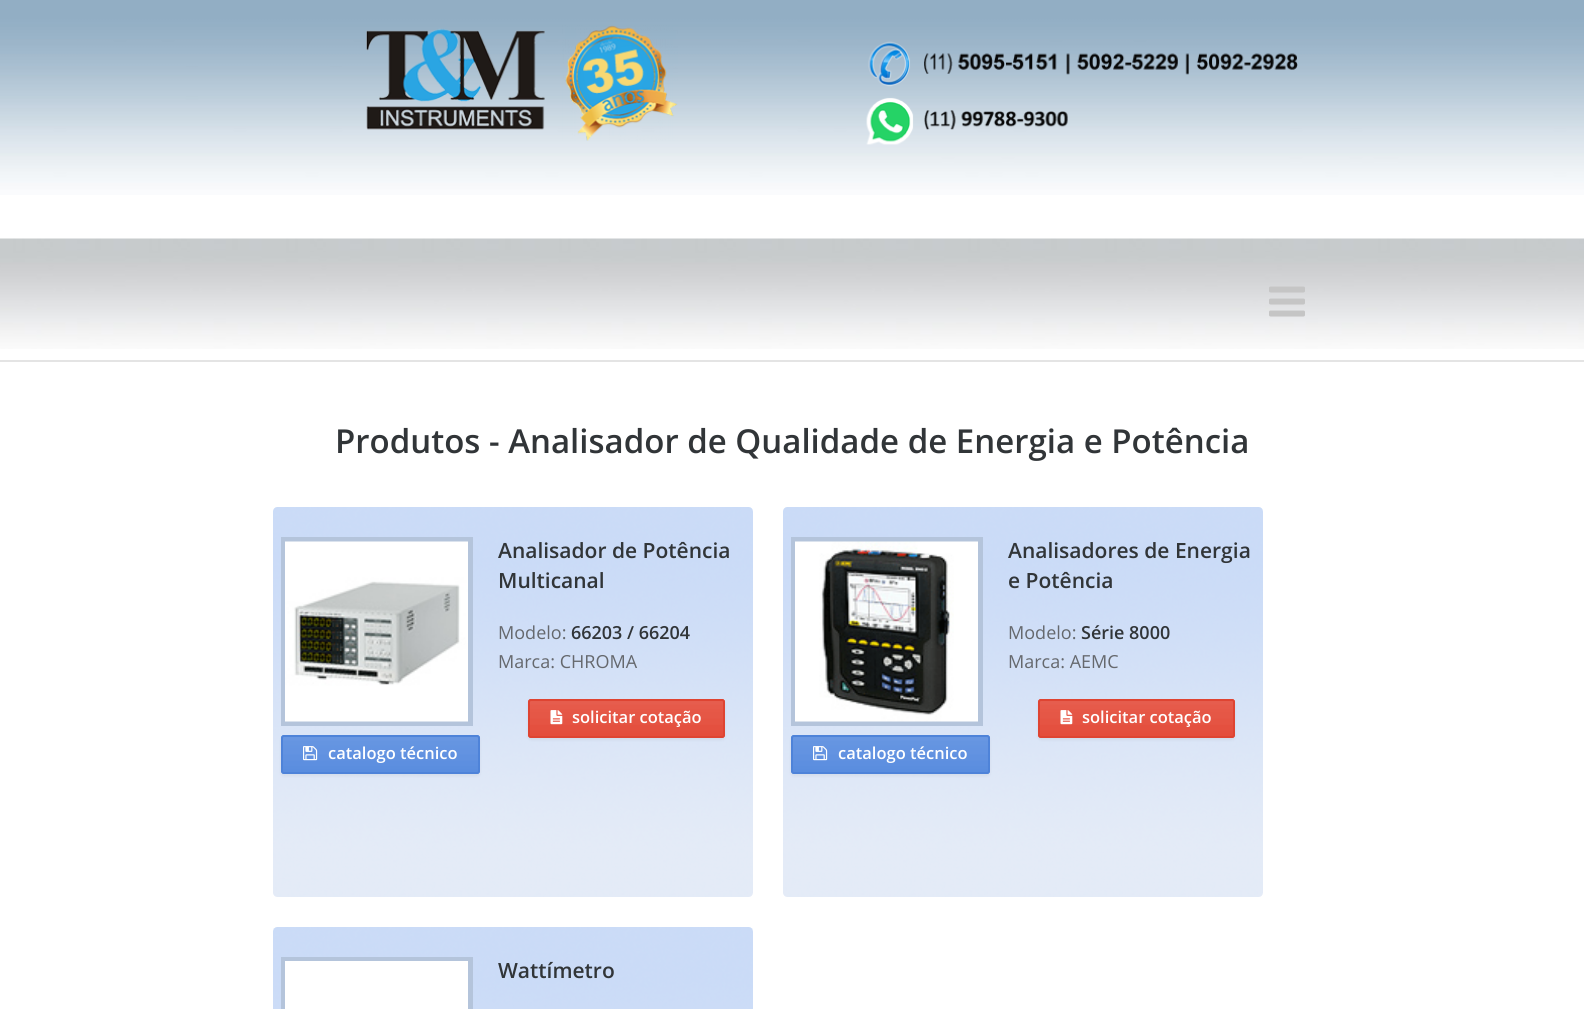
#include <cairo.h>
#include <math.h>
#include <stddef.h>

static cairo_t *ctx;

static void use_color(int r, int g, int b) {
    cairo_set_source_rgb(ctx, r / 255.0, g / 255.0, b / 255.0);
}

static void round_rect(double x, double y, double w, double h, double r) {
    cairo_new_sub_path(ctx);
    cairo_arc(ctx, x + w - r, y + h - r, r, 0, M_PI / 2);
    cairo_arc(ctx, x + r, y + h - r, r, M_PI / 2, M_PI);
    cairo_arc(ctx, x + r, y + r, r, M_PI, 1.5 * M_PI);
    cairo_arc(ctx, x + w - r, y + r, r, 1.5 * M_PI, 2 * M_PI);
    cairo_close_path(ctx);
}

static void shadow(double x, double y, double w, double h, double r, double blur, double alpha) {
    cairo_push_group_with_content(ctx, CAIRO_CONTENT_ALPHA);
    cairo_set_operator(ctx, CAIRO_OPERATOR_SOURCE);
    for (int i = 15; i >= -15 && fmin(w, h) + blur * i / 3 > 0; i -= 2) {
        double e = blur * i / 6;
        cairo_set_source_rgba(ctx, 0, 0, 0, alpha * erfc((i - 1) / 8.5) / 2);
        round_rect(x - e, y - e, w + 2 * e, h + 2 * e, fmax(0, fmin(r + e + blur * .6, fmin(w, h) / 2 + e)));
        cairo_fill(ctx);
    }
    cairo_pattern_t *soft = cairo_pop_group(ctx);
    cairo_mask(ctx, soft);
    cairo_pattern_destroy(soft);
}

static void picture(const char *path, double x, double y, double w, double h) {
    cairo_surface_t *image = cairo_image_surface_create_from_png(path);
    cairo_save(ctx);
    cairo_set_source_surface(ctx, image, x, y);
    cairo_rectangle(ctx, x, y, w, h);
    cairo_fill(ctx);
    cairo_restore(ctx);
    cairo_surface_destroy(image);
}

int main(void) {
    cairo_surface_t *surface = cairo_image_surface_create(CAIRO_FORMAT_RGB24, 1584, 1009);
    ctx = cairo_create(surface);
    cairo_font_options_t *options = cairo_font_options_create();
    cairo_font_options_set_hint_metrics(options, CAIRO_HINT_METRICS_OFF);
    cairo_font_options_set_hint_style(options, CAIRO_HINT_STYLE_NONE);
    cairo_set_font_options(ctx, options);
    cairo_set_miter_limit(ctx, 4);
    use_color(255, 255, 255);
    cairo_paint(ctx);
    picture("img1.png", 0, 0, 1584, 195);
    picture("img2.png", 366, 25, 312, 116);
    picture("img3.png", 866, 41, 432, 104);
    picture("img4.png", 0, 238, 1584, 111);
    picture("img5.png", 1269, 286, 36, 31);
    use_color(228, 228, 228);
    cairo_rectangle(ctx, 0, 360, 1584, 2);
    cairo_fill(ctx);
    cairo_select_font_face(ctx, "Open Sans SemiBold", CAIRO_FONT_SLANT_NORMAL, CAIRO_FONT_WEIGHT_NORMAL);
    cairo_set_font_size(ctx, 33);
    use_color(49, 53, 56);
    cairo_move_to(ctx, 335, 453);
    cairo_show_text(ctx, "Produtos - Analisador de Qualidade de Energia e Potência");
    picture("img6.png", 273, 507, 480, 390);
    cairo_set_font_size(ctx, 21);
    cairo_move_to(ctx, 498, 558);
    cairo_show_text(ctx, "Analisador de Potência");
    cairo_move_to(ctx, 498, 588);
    cairo_show_text(ctx, "Multicanal");
    cairo_select_font_face(ctx, "Open Sans", CAIRO_FONT_SLANT_NORMAL, CAIRO_FONT_WEIGHT_NORMAL);
    cairo_set_font_size(ctx, 18);
    use_color(101, 104, 109);
    cairo_move_to(ctx, 498, 639);
    cairo_show_text(ctx, "Modelo:");
    cairo_select_font_face(ctx, "Open Sans SemiBold", CAIRO_FONT_SLANT_NORMAL, CAIRO_FONT_WEIGHT_NORMAL);
    use_color(49, 53, 56);
    cairo_move_to(ctx, 571, 639);
    cairo_show_text(ctx, "66203 / 66204");
    cairo_select_font_face(ctx, "Open Sans", CAIRO_FONT_SLANT_NORMAL, CAIRO_FONT_WEIGHT_NORMAL);
    use_color(101, 104, 109);
    cairo_move_to(ctx, 498, 668);
    cairo_show_text(ctx, "Marca: CHROMA");
    use_color(0, 0, 0);
    shadow(528, 701, 197, 39, 3, 1.5, 0.05);
    use_color(227, 71, 53);
    round_rect(528, 699, 197, 39, 3);
    cairo_fill(ctx);
    picture("img7.png", 528, 700, 197, 38);
    round_rect(529, 700, 195, 37, 2);
    use_color(223, 68, 50);
    cairo_stroke(ctx);
    picture("img8.png", 550, 710, 13, 15);
    cairo_select_font_face(ctx, "Open Sans SemiBold", CAIRO_FONT_SLANT_NORMAL, CAIRO_FONT_WEIGHT_NORMAL);
    cairo_set_font_size(ctx, 16.5);
    use_color(255, 255, 255);
    cairo_move_to(ctx, 572, 723);
    cairo_show_text(ctx, "solicitar cotação");
    cairo_rectangle(ctx, 283.5, 539.5, 187, 184);
    use_color(180, 196, 219);
    cairo_set_line_width(ctx, 5);
    cairo_stroke(ctx);
    picture("img9.png", 285, 541, 183, 181);
    use_color(0, 0, 0);
    shadow(281, 737, 199, 39, 3, 1.5, 0.05);
    use_color(84, 137, 222);
    round_rect(281, 735, 199, 39, 3);
    cairo_fill(ctx);
    picture("img10.png", 281, 736, 199, 38);
    round_rect(282, 736, 197, 37, 2);
    use_color(78, 131, 217);
    cairo_set_line_width(ctx, 2);
    cairo_stroke(ctx);
    picture("img11.png", 303, 746, 15, 15);
    use_color(255, 255, 255);
    cairo_move_to(ctx, 328, 759);
    cairo_show_text(ctx, "catalogo técnico");
    picture("img12.png", 783, 507, 480, 390);
    cairo_set_font_size(ctx, 21);
    use_color(49, 53, 56);
    cairo_move_to(ctx, 1008, 558);
    cairo_show_text(ctx, "Analisadores de Energia");
    cairo_move_to(ctx, 1008, 588);
    cairo_show_text(ctx, "e Potência");
    cairo_select_font_face(ctx, "Open Sans", CAIRO_FONT_SLANT_NORMAL, CAIRO_FONT_WEIGHT_NORMAL);
    cairo_set_font_size(ctx, 18);
    use_color(101, 104, 109);
    cairo_move_to(ctx, 1008, 639);
    cairo_show_text(ctx, "Modelo:");
    cairo_select_font_face(ctx, "Open Sans SemiBold", CAIRO_FONT_SLANT_NORMAL, CAIRO_FONT_WEIGHT_NORMAL);
    use_color(49, 53, 56);
    cairo_move_to(ctx, 1081, 639);
    cairo_show_text(ctx, "Série 8000");
    cairo_select_font_face(ctx, "Open Sans", CAIRO_FONT_SLANT_NORMAL, CAIRO_FONT_WEIGHT_NORMAL);
    use_color(101, 104, 109);
    cairo_move_to(ctx, 1008, 668);
    cairo_show_text(ctx, "Marca: AEMC");
    use_color(0, 0, 0);
    shadow(1038, 701, 197, 39, 3, 1.5, 0.05);
    use_color(227, 71, 53);
    round_rect(1038, 699, 197, 39, 3);
    cairo_fill(ctx);
    picture("img7.png", 1038, 700, 197, 38);
    round_rect(1039, 700, 195, 37, 2);
    use_color(223, 68, 50);
    cairo_stroke(ctx);
    picture("img8.png", 1060, 710, 13, 15);
    cairo_select_font_face(ctx, "Open Sans SemiBold", CAIRO_FONT_SLANT_NORMAL, CAIRO_FONT_WEIGHT_NORMAL);
    cairo_set_font_size(ctx, 16.5);
    use_color(255, 255, 255);
    cairo_move_to(ctx, 1082, 723);
    cairo_show_text(ctx, "solicitar cotação");
    cairo_rectangle(ctx, 793.5, 539.5, 187, 184);
    use_color(180, 196, 219);
    cairo_set_line_width(ctx, 5);
    cairo_stroke(ctx);
    picture("img13.png", 795, 541, 183, 181);
    use_color(0, 0, 0);
    shadow(791, 737, 199, 39, 3, 1.5, 0.05);
    use_color(84, 137, 222);
    round_rect(791, 735, 199, 39, 3);
    cairo_fill(ctx);
    picture("img10.png", 791, 736, 199, 38);
    round_rect(792, 736, 197, 37, 2);
    use_color(78, 131, 217);
    cairo_set_line_width(ctx, 2);
    cairo_stroke(ctx);
    picture("img11.png", 813, 746, 15, 15);
    use_color(255, 255, 255);
    cairo_move_to(ctx, 838, 759);
    cairo_show_text(ctx, "catalogo técnico");
    picture("img14.png", 273, 927, 480, 82);
    cairo_rectangle(ctx, 283.5, 959.5, 187, 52);
    use_color(180, 196, 219);
    cairo_set_line_width(ctx, 5);
    cairo_stroke(ctx);
    use_color(255, 255, 255);
    cairo_rectangle(ctx, 285, 961, 183, 48);
    cairo_fill(ctx);
    cairo_set_font_size(ctx, 21);
    use_color(49, 53, 56);
    cairo_move_to(ctx, 498, 978);
    cairo_show_text(ctx, "Wattímetro");
    cairo_surface_write_to_png(surface, "result.png");
    cairo_font_options_destroy(options);
    cairo_destroy(ctx);
    cairo_surface_destroy(surface);
    return 0;
}
